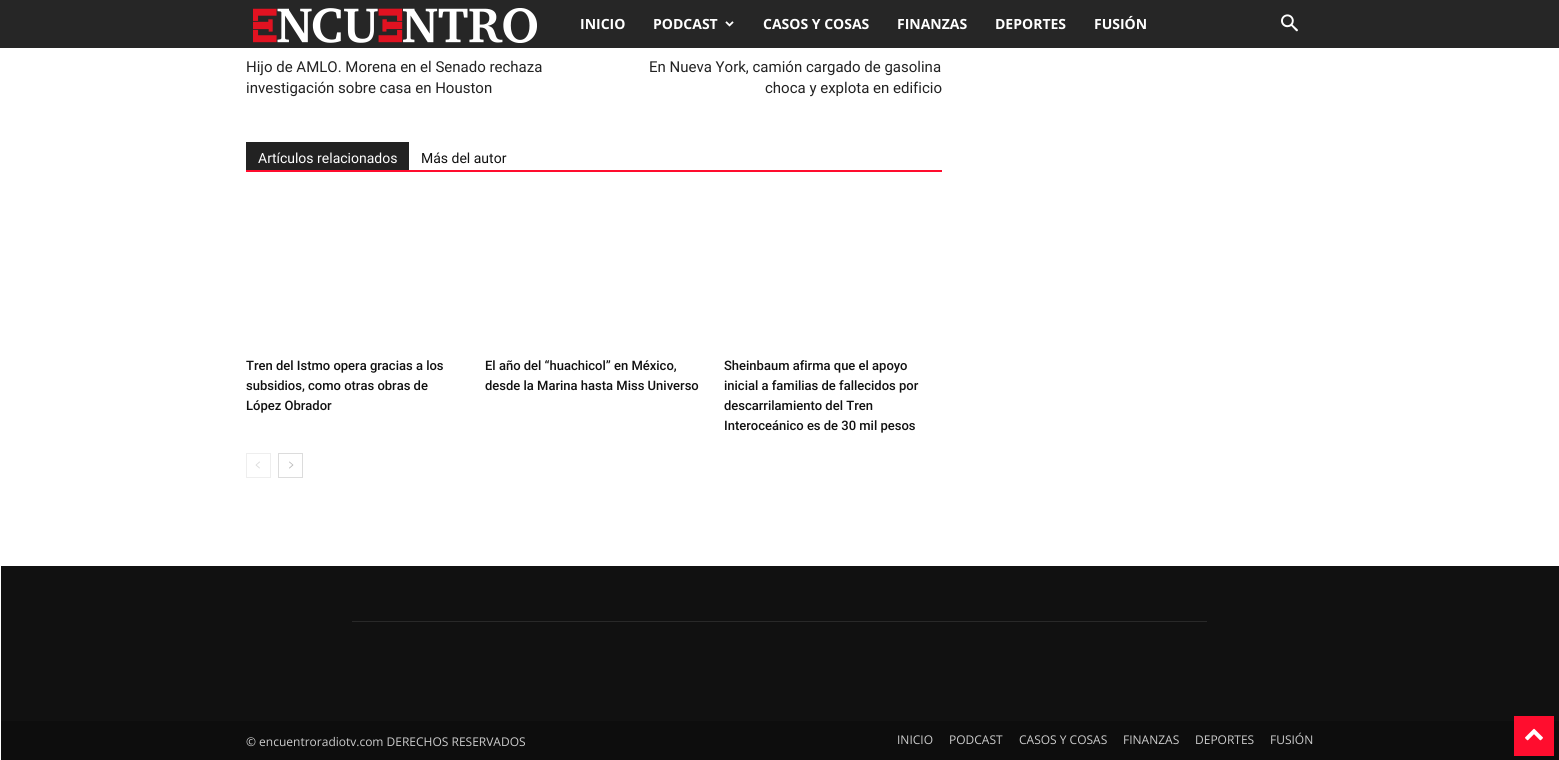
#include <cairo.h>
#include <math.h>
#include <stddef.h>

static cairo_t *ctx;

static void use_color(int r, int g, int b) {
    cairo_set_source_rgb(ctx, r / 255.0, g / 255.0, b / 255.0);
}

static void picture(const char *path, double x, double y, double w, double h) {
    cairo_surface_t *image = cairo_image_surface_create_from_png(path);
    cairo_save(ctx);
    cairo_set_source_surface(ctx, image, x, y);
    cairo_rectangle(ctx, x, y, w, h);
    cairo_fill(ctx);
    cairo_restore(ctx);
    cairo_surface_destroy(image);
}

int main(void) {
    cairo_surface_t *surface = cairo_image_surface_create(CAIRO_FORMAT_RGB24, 1559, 760);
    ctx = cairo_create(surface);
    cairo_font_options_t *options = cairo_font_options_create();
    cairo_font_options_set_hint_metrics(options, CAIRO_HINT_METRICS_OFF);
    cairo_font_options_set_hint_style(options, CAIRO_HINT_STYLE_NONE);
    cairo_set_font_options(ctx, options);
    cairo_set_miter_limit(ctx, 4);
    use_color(255, 255, 255);
    cairo_paint(ctx);
    use_color(38, 38, 38);
    cairo_rectangle(ctx, 0, 0, 1559, 48);
    cairo_fill(ctx);
    picture("img1.png", 253, 8, 284, 35);
    cairo_select_font_face(ctx, "Open Sans", CAIRO_FONT_SLANT_NORMAL, CAIRO_FONT_WEIGHT_BOLD);
    cairo_set_font_size(ctx, 14);
    use_color(255, 255, 255);
    cairo_move_to(ctx, 580, 29);
    cairo_show_text(ctx, "INICIO");
    cairo_move_to(ctx, 653, 29);
    cairo_show_text(ctx, "PODCAST");
    picture("img2.png", 725, 21, 9, 6);
    cairo_move_to(ctx, 763, 29);
    cairo_show_text(ctx, "CASOS Y COSAS");
    cairo_move_to(ctx, 897, 29);
    cairo_show_text(ctx, "FINANZAS");
    cairo_move_to(ctx, 995, 29);
    cairo_show_text(ctx, "DEPORTES");
    cairo_move_to(ctx, 1094, 29);
    cairo_show_text(ctx, "FUSIÓN");
    picture("img3.png", 1281, 14, 17, 18);
    cairo_select_font_face(ctx, "Roboto", CAIRO_FONT_SLANT_NORMAL, CAIRO_FONT_WEIGHT_NORMAL);
    cairo_set_font_size(ctx, 15);
    use_color(34, 34, 34);
    cairo_move_to(ctx, 246, 72);
    cairo_show_text(ctx, "Hijo de AMLO. Morena en el Senado rechaza");
    cairo_move_to(ctx, 246, 93);
    cairo_show_text(ctx, "investigación sobre casa en Houston");
    cairo_move_to(ctx, 649, 72);
    cairo_show_text(ctx, "En Nueva York, camión cargado de gasolina");
    cairo_move_to(ctx, 765, 93);
    cairo_show_text(ctx, "choca y explota en edificio");
    use_color(255, 13, 46);
    cairo_rectangle(ctx, 246, 170, 696, 2);
    cairo_fill(ctx);
    use_color(34, 34, 34);
    cairo_rectangle(ctx, 246, 142, 163, 28);
    cairo_fill(ctx);
    cairo_set_font_size(ctx, 14);
    use_color(255, 255, 255);
    cairo_move_to(ctx, 258, 163);
    cairo_show_text(ctx, "Artículos relacionados");
    use_color(17, 17, 17);
    cairo_move_to(ctx, 421, 163);
    cairo_show_text(ctx, "Más del autor");
    cairo_select_font_face(ctx, "Roboto Medium", CAIRO_FONT_SLANT_NORMAL, CAIRO_FONT_WEIGHT_NORMAL);
    cairo_set_font_size(ctx, 13);
    cairo_move_to(ctx, 246, 370);
    cairo_show_text(ctx, "Tren del Istmo opera gracias a los");
    cairo_move_to(ctx, 246, 390);
    cairo_show_text(ctx, "subsidios, como otras obras de");
    cairo_move_to(ctx, 246, 410);
    cairo_show_text(ctx, "López Obrador");
    cairo_move_to(ctx, 485, 370);
    cairo_show_text(ctx, "El año del “huachicol” en México,");
    cairo_move_to(ctx, 485, 390);
    cairo_show_text(ctx, "desde la Marina hasta Miss Universo");
    cairo_move_to(ctx, 724, 370);
    cairo_show_text(ctx, "Sheinbaum afirma que el apoyo");
    cairo_move_to(ctx, 724, 390);
    cairo_show_text(ctx, "inicial a familias de fallecidos por");
    cairo_move_to(ctx, 724, 410);
    cairo_show_text(ctx, "descarrilamiento del Tren");
    cairo_move_to(ctx, 724, 430);
    cairo_show_text(ctx, "Interoceánico es de 30 mil pesos");
    cairo_rectangle(ctx, 246.5, 453.5, 24, 24);
    use_color(238, 238, 238);
    cairo_set_line_width(ctx, 1);
    cairo_stroke(ctx);
    picture("img4.png", 255, 461, 5, 8);
    cairo_rectangle(ctx, 278.5, 453.5, 24, 24);
    use_color(220, 220, 220);
    cairo_stroke(ctx);
    picture("img5.png", 289, 461, 5, 8);
    use_color(17, 17, 17);
    cairo_rectangle(ctx, 1, 566, 1558, 155);
    cairo_fill(ctx);
    use_color(41, 41, 41);
    cairo_rectangle(ctx, 352, 621, 855, 1);
    cairo_fill(ctx);
    use_color(13, 13, 13);
    cairo_rectangle(ctx, 1, 721, 1558, 39);
    cairo_fill(ctx);
    cairo_select_font_face(ctx, "Open Sans", CAIRO_FONT_SLANT_NORMAL, CAIRO_FONT_WEIGHT_NORMAL);
    cairo_set_font_size(ctx, 12);
    use_color(204, 204, 204);
    cairo_move_to(ctx, 246, 746);
    cairo_show_text(ctx, "© encuentroradiotv.com DERECHOS RESERVADOS");
    cairo_move_to(ctx, 897, 744);
    cairo_show_text(ctx, "INICIO");
    cairo_move_to(ctx, 949, 744);
    cairo_show_text(ctx, "PODCAST");
    cairo_move_to(ctx, 1019, 744);
    cairo_show_text(ctx, "CASOS Y COSAS");
    cairo_move_to(ctx, 1123, 744);
    cairo_show_text(ctx, "FINANZAS");
    cairo_move_to(ctx, 1195, 744);
    cairo_show_text(ctx, "DEPORTES");
    cairo_move_to(ctx, 1270, 744);
    cairo_show_text(ctx, "FUSIÓN");
    use_color(255, 13, 46);
    cairo_rectangle(ctx, 1514, 716, 40, 40);
    cairo_fill(ctx);
    picture("img6.png", 1525, 728, 18, 13);
    cairo_surface_write_to_png(surface, "result.png");
    cairo_font_options_destroy(options);
    cairo_destroy(ctx);
    cairo_surface_destroy(surface);
    return 0;
}
